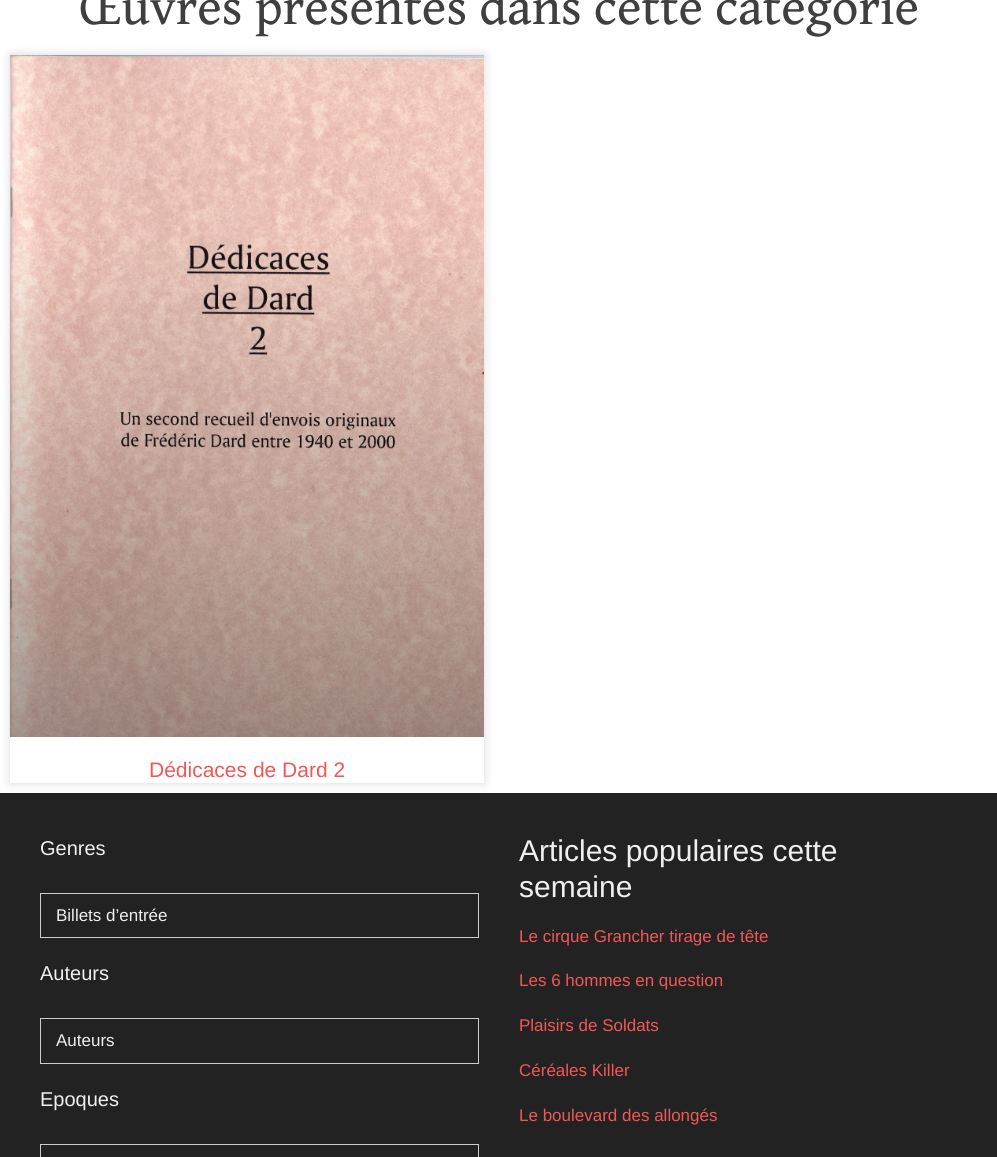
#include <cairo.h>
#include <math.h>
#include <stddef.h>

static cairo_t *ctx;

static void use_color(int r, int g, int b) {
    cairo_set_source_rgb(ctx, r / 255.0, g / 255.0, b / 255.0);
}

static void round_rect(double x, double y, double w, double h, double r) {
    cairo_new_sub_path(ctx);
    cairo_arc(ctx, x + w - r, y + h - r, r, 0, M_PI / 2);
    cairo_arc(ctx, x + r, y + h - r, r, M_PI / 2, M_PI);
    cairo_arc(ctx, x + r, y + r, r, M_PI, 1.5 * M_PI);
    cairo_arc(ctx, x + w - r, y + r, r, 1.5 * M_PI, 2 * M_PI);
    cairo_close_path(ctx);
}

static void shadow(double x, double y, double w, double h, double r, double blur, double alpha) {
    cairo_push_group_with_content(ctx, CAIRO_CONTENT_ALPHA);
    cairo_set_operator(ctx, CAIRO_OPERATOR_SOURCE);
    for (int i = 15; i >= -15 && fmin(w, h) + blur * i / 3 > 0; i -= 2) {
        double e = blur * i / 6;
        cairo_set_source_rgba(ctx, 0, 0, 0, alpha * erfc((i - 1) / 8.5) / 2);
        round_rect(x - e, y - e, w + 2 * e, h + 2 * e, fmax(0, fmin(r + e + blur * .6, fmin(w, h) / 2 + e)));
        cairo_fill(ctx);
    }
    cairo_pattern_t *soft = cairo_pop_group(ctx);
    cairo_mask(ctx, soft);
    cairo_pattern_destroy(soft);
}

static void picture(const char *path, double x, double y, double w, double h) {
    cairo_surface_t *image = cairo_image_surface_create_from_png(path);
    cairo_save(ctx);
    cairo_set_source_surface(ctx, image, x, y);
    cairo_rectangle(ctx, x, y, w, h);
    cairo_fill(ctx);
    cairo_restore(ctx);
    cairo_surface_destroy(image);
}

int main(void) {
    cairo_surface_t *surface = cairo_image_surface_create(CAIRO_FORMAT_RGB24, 997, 1157);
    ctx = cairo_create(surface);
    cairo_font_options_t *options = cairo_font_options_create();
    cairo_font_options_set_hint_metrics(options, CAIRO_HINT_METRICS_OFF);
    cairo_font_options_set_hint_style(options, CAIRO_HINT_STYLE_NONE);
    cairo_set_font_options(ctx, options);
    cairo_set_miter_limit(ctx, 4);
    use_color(255, 255, 255);
    cairo_paint(ctx);
    cairo_select_font_face(ctx, "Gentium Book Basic", CAIRO_FONT_SLANT_NORMAL, CAIRO_FONT_WEIGHT_NORMAL);
    cairo_set_font_size(ctx, 52.25);
    use_color(63, 63, 63);
    cairo_move_to(ctx, 79, 24);
    cairo_show_text(ctx, "Œuvres présentes dans cette catégorie");
    use_color(34, 34, 34);
    cairo_rectangle(ctx, 0, 793, 997, 364);
    cairo_fill(ctx);
    cairo_save(ctx);
    cairo_set_fill_rule(ctx, CAIRO_FILL_RULE_EVEN_ODD);
    cairo_new_path(ctx);
    cairo_move_to(ctx, 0, 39);
    cairo_line_to(ctx, 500, 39);
    cairo_line_to(ctx, 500, 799);
    cairo_line_to(ctx, 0, 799);
    cairo_close_path(ctx);
    cairo_move_to(ctx, 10, 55);
    cairo_line_to(ctx, 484, 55);
    cairo_line_to(ctx, 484, 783);
    cairo_line_to(ctx, 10, 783);
    cairo_close_path(ctx);
    cairo_clip(ctx);
    use_color(0, 0, 0);
    shadow(10, 55, 474, 728, 0, 5, 0.15);
    cairo_restore(ctx);
    picture("img1.png", 10, 55, 474, 682);
    cairo_select_font_face(ctx, "Liberation Sans", CAIRO_FONT_SLANT_NORMAL, CAIRO_FONT_WEIGHT_NORMAL);
    cairo_set_font_size(ctx, 21);
    use_color(241, 87, 85);
    cairo_move_to(ctx, 149, 777);
    cairo_show_text(ctx, "Dédicaces de Dard 2");
    cairo_set_font_size(ctx, 20);
    use_color(239, 239, 239);
    cairo_move_to(ctx, 40, 855);
    cairo_show_text(ctx, "Genres");
    cairo_rectangle(ctx, 40.5, 893.5, 438, 44);
    use_color(204, 204, 204);
    cairo_set_line_width(ctx, 1);
    cairo_stroke(ctx);
    cairo_set_font_size(ctx, 17);
    use_color(239, 239, 239);
    cairo_move_to(ctx, 56, 921);
    cairo_show_text(ctx, "Billets d’entrée");
    cairo_set_font_size(ctx, 20);
    cairo_move_to(ctx, 40, 980);
    cairo_show_text(ctx, "Auteurs");
    cairo_rectangle(ctx, 40.5, 1018.5, 438, 45);
    use_color(204, 204, 204);
    cairo_stroke(ctx);
    cairo_set_font_size(ctx, 17);
    use_color(239, 239, 239);
    cairo_move_to(ctx, 56, 1046);
    cairo_show_text(ctx, "Auteurs");
    cairo_set_font_size(ctx, 20);
    cairo_move_to(ctx, 40, 1106);
    cairo_show_text(ctx, "Epoques");
    cairo_rectangle(ctx, 40.5, 1144.5, 438, 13);
    use_color(204, 204, 204);
    cairo_stroke(ctx);
    cairo_set_font_size(ctx, 30);
    use_color(239, 239, 239);
    cairo_move_to(ctx, 519, 861);
    cairo_show_text(ctx, "Articles populaires cette");
    cairo_move_to(ctx, 519, 897);
    cairo_show_text(ctx, "semaine");
    cairo_set_font_size(ctx, 17);
    use_color(241, 87, 85);
    cairo_move_to(ctx, 519, 942);
    cairo_show_text(ctx, "Le cirque Grancher tirage de tête");
    cairo_move_to(ctx, 519, 986);
    cairo_show_text(ctx, "Les 6 hommes en question");
    cairo_move_to(ctx, 519, 1031);
    cairo_show_text(ctx, "Plaisirs de Soldats");
    cairo_move_to(ctx, 519, 1076);
    cairo_show_text(ctx, "Céréales Killer");
    cairo_move_to(ctx, 519, 1121);
    cairo_show_text(ctx, "Le boulevard des allongés");
    cairo_surface_write_to_png(surface, "result.png");
    cairo_font_options_destroy(options);
    cairo_destroy(ctx);
    cairo_surface_destroy(surface);
    return 0;
}
